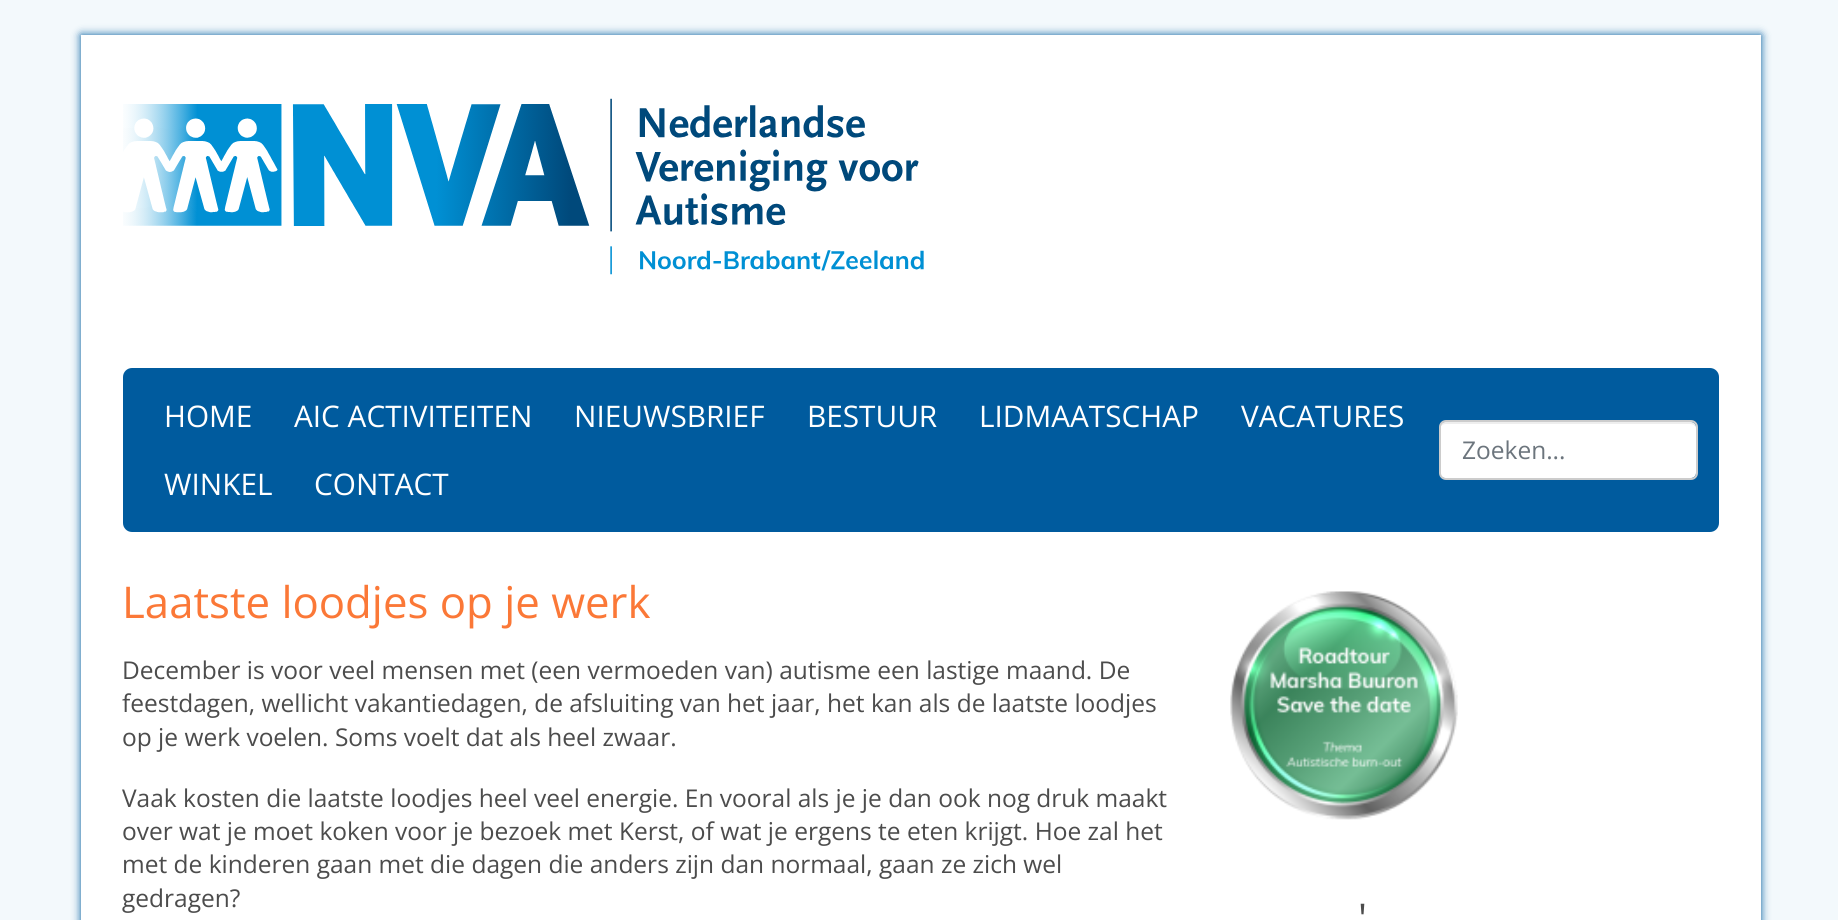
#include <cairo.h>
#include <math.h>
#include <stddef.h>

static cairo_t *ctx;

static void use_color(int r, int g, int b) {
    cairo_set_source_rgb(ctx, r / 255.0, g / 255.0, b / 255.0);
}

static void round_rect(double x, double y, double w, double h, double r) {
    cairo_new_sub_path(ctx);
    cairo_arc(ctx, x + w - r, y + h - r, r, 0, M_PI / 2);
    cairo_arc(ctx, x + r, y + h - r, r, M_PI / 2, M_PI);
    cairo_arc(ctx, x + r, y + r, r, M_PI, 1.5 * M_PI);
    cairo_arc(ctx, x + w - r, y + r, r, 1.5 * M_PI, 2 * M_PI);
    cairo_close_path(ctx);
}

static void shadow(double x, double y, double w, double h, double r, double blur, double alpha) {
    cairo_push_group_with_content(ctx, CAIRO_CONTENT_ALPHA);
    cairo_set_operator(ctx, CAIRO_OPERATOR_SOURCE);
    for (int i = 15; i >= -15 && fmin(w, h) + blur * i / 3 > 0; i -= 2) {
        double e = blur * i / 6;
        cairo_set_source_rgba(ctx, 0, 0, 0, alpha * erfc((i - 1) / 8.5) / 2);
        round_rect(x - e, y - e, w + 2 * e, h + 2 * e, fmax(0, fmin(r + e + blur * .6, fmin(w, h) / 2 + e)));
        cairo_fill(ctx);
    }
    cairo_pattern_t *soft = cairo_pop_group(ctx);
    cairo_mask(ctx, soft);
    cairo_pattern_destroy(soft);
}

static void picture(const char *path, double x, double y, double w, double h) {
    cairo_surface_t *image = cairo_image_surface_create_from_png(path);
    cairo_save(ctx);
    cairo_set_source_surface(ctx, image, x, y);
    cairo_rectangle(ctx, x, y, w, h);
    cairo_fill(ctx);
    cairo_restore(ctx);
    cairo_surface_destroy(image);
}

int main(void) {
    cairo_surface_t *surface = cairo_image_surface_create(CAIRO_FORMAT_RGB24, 1838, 920);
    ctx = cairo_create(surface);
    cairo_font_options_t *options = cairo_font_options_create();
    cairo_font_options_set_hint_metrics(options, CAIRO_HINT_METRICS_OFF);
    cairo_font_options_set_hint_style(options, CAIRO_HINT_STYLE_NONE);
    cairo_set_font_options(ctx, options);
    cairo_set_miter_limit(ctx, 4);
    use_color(243, 249, 252);
    cairo_paint(ctx);
    use_color(0, 91, 158);
    shadow(81, 35, 1680, 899, 0, 4.5, 1);
    use_color(255, 255, 255);
    cairo_rectangle(ctx, 81, 35, 1680, 885);
    cairo_fill(ctx);
    picture("img1.png", 123, 98, 801, 177);
    use_color(0, 91, 158);
    round_rect(123, 368, 1596, 164, 9);
    cairo_fill(ctx);
    cairo_select_font_face(ctx, "Open Sans", CAIRO_FONT_SLANT_NORMAL, CAIRO_FONT_WEIGHT_NORMAL);
    cairo_set_font_size(ctx, 29.75);
    use_color(255, 255, 255);
    cairo_move_to(ctx, 164, 427);
    cairo_show_text(ctx, "HOME");
    cairo_move_to(ctx, 294, 427);
    cairo_show_text(ctx, "AIC ACTIVITEITEN");
    cairo_move_to(ctx, 574, 427);
    cairo_show_text(ctx, "NIEUWSBRIEF");
    cairo_move_to(ctx, 807, 427);
    cairo_show_text(ctx, "BESTUUR");
    cairo_move_to(ctx, 979, 427);
    cairo_show_text(ctx, "LIDMAATSCHAP");
    cairo_move_to(ctx, 1241, 427);
    cairo_show_text(ctx, "VACATURES");
    cairo_move_to(ctx, 164, 495);
    cairo_show_text(ctx, "WINKEL");
    cairo_move_to(ctx, 314, 495);
    cairo_show_text(ctx, "CONTACT");
    round_rect(1440, 422, 256, 56, 5);
    cairo_fill(ctx);
    cairo_set_source_rgba(ctx, 0, 0, 0, 0.07);
    cairo_new_path(ctx);
    cairo_move_to(ctx, 1446, 424);
    cairo_line_to(ctx, 1690, 424);
    cairo_curve_to(ctx, 1693, 424, 1696, 426, 1696, 429);
    cairo_curve_to(ctx, 1696, 426, 1695, 422, 1691, 422);
    cairo_line_to(ctx, 1445, 422);
    cairo_curve_to(ctx, 1441, 422, 1440, 426, 1440, 429);
    cairo_curve_to(ctx, 1440, 426, 1443, 424, 1446, 424);
    cairo_close_path(ctx);
    cairo_fill(ctx);
    round_rect(1440, 421, 257, 58, 6);
    use_color(204, 204, 204);
    cairo_stroke(ctx);
    cairo_set_font_size(ctx, 24.5);
    use_color(108, 117, 125);
    cairo_move_to(ctx, 1462, 459);
    cairo_show_text(ctx, "Zoeken...");
    cairo_set_font_size(ctx, 43.75);
    use_color(251, 120, 55);
    cairo_move_to(ctx, 122, 618);
    cairo_show_text(ctx, "Laatste loodjes op je werk");
    cairo_set_font_size(ctx, 24.5);
    use_color(76, 76, 76);
    cairo_move_to(ctx, 122, 679);
    cairo_show_text(ctx, "December is voor veel mensen met (een vermoeden van) autisme een lastige maand. De");
    cairo_move_to(ctx, 122, 712);
    cairo_show_text(ctx, "feestdagen, wellicht vakantiedagen, de afsluiting van het jaar, het kan als de laatste loodjes");
    cairo_move_to(ctx, 122, 746);
    cairo_show_text(ctx, "op je werk voelen. Soms voelt dat als heel zwaar.");
    cairo_move_to(ctx, 122, 807);
    cairo_show_text(ctx, "Vaak kosten die laatste loodjes heel veel energie. En vooral als je je dan ook nog druk maakt");
    cairo_move_to(ctx, 122, 840);
    cairo_show_text(ctx, "over wat je moet koken voor je bezoek met Kerst, of wat je ergens te eten krijgt. Hoe zal het");
    cairo_move_to(ctx, 122, 873);
    cairo_show_text(ctx, "met de kinderen gaan met die dagen die anders zijn dan normaal, gaan ze zich wel");
    cairo_move_to(ctx, 122, 907);
    cairo_show_text(ctx, "gedragen?");
    picture("img2.png", 1230, 591, 228, 229);
    cairo_set_font_size(ctx, 41);
    cairo_move_to(ctx, 1358, 933);
    cairo_show_text(ctx, "'");
    cairo_surface_write_to_png(surface, "result.png");
    cairo_font_options_destroy(options);
    cairo_destroy(ctx);
    cairo_surface_destroy(surface);
    return 0;
}
